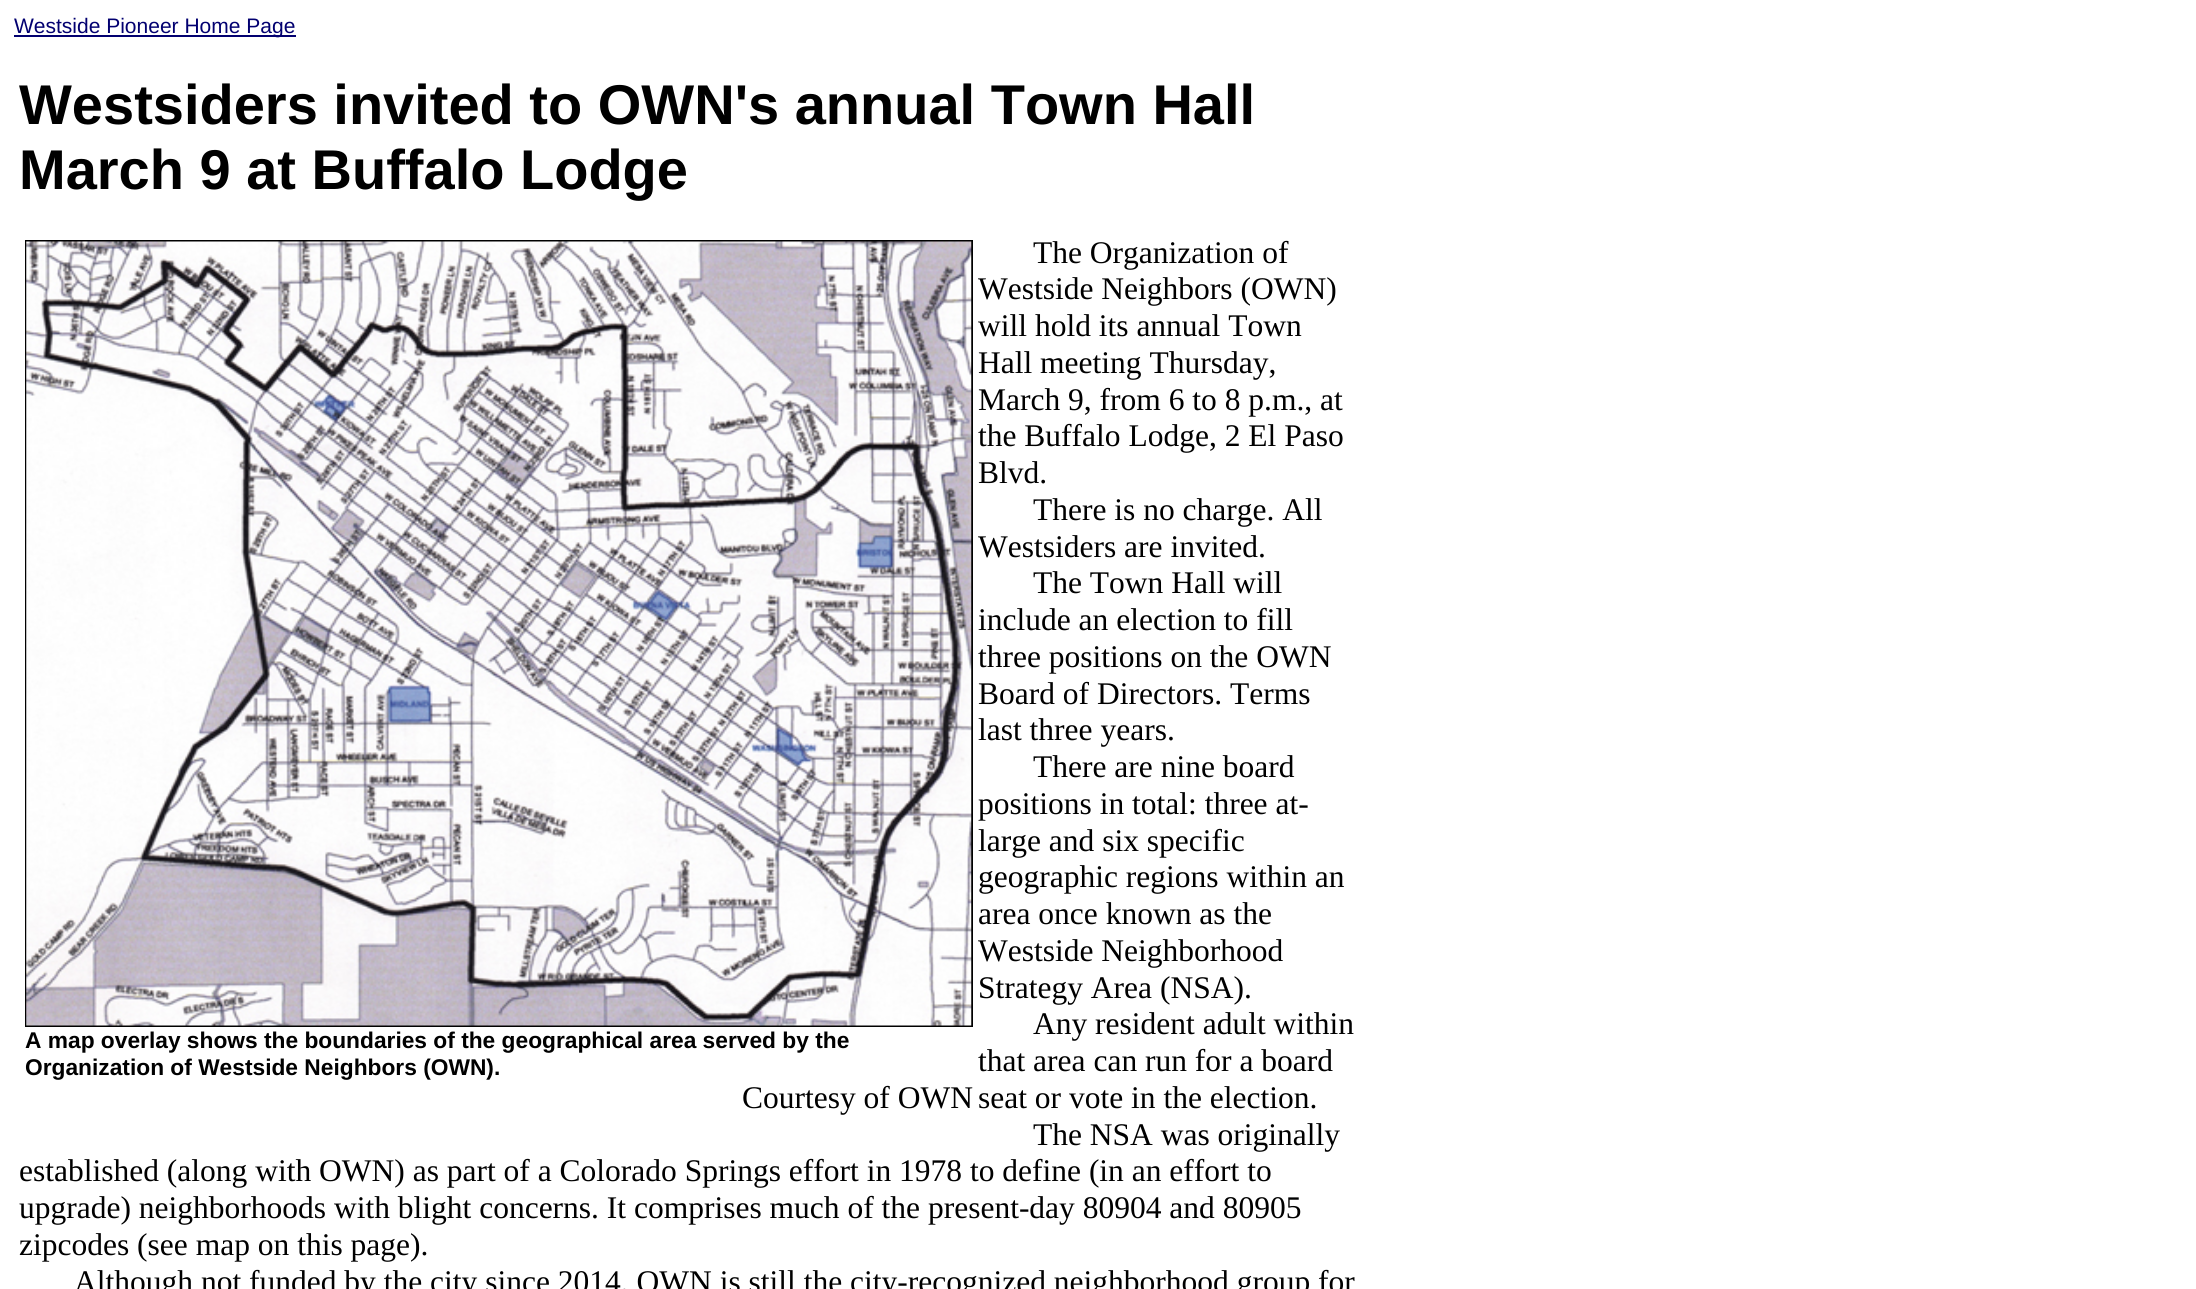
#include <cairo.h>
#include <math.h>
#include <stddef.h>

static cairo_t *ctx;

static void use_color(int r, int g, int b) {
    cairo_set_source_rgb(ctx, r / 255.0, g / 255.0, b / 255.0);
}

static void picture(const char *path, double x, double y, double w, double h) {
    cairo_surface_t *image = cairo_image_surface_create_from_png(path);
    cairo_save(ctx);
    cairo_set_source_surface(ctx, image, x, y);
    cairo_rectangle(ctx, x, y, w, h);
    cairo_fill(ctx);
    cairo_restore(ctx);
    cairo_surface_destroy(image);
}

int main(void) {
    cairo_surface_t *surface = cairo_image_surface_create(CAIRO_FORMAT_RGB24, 2196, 1289);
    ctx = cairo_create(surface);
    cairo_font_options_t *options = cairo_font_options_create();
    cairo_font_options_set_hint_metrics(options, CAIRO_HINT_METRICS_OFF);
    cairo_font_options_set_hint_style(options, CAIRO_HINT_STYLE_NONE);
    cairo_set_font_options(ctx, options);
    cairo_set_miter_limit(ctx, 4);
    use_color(255, 255, 255);
    cairo_paint(ctx);
    use_color(2, 0, 112);
    cairo_rectangle(ctx, 14, 35, 282, 2);
    cairo_fill(ctx);
    cairo_select_font_face(ctx, "Liberation Sans", CAIRO_FONT_SLANT_NORMAL, CAIRO_FONT_WEIGHT_NORMAL);
    cairo_set_font_size(ctx, 21);
    cairo_move_to(ctx, 14, 33);
    cairo_show_text(ctx, "Westside Pioneer Home Page");
    cairo_select_font_face(ctx, "Liberation Sans", CAIRO_FONT_SLANT_NORMAL, CAIRO_FONT_WEIGHT_BOLD);
    cairo_set_font_size(ctx, 56);
    use_color(0, 0, 0);
    cairo_move_to(ctx, 19, 124);
    cairo_show_text(ctx, "Westsiders invited to OWN's annual Town Hall");
    cairo_move_to(ctx, 19, 189);
    cairo_show_text(ctx, "March 9 at Buffalo Lodge");
    cairo_select_font_face(ctx, "Liberation Serif", CAIRO_FONT_SLANT_NORMAL, CAIRO_FONT_WEIGHT_NORMAL);
    cairo_set_font_size(ctx, 31.5);
    cairo_move_to(ctx, 1033, 263);
    cairo_show_text(ctx, "The Organization of");
    cairo_move_to(ctx, 978, 299);
    cairo_show_text(ctx, "Westside Neighbors (OWN)");
    cairo_move_to(ctx, 978, 336);
    cairo_show_text(ctx, "will hold its annual Town");
    cairo_move_to(ctx, 978, 373);
    cairo_show_text(ctx, "Hall meeting Thursday,");
    cairo_move_to(ctx, 978, 410);
    cairo_show_text(ctx, "March 9, from 6 to 8 p.m., at");
    cairo_move_to(ctx, 978, 446);
    cairo_show_text(ctx, "the Buffalo Lodge, 2 El Paso");
    cairo_move_to(ctx, 978, 483);
    cairo_show_text(ctx, "Blvd.");
    cairo_move_to(ctx, 1033, 520);
    cairo_show_text(ctx, "There is no charge. All");
    cairo_move_to(ctx, 978, 557);
    cairo_show_text(ctx, "Westsiders are invited.");
    cairo_move_to(ctx, 1033, 593);
    cairo_show_text(ctx, "The Town Hall will");
    cairo_move_to(ctx, 978, 630);
    cairo_show_text(ctx, "include an election to fill");
    cairo_move_to(ctx, 978, 667);
    cairo_show_text(ctx, "three positions on the OWN");
    cairo_move_to(ctx, 978, 704);
    cairo_show_text(ctx, "Board of Directors. Terms");
    cairo_move_to(ctx, 978, 740);
    cairo_show_text(ctx, "last three years.");
    cairo_move_to(ctx, 1033, 777);
    cairo_show_text(ctx, "There are nine board");
    cairo_move_to(ctx, 978, 814);
    cairo_show_text(ctx, "positions in total: three at-");
    cairo_move_to(ctx, 978, 851);
    cairo_show_text(ctx, "large and six specific");
    cairo_move_to(ctx, 978, 887);
    cairo_show_text(ctx, "geographic regions within an");
    cairo_move_to(ctx, 978, 924);
    cairo_show_text(ctx, "area once known as the");
    cairo_move_to(ctx, 978, 961);
    cairo_show_text(ctx, "Westside Neighborhood");
    cairo_move_to(ctx, 978, 998);
    cairo_show_text(ctx, "Strategy Area (NSA).");
    cairo_move_to(ctx, 1033, 1034);
    cairo_show_text(ctx, "Any resident adult within");
    cairo_rectangle(ctx, 26, 241, 946, 785);
    cairo_stroke(ctx);
    picture("img1.png", 26, 241, 946, 785);
    cairo_select_font_face(ctx, "Liberation Sans", CAIRO_FONT_SLANT_NORMAL, CAIRO_FONT_WEIGHT_BOLD);
    cairo_set_font_size(ctx, 22.75);
    cairo_move_to(ctx, 25, 1048);
    cairo_show_text(ctx, "A map overlay shows the boundaries of the geographical area served by the");
    cairo_move_to(ctx, 25, 1075);
    cairo_show_text(ctx, "Organization of Westside Neighbors (OWN).");
    cairo_select_font_face(ctx, "Liberation Serif", CAIRO_FONT_SLANT_NORMAL, CAIRO_FONT_WEIGHT_NORMAL);
    cairo_set_font_size(ctx, 31.5);
    cairo_move_to(ctx, 742, 1108);
    cairo_show_text(ctx, "Courtesy of OWN");
    cairo_move_to(ctx, 978, 1071);
    cairo_show_text(ctx, "that area can run for a board");
    cairo_move_to(ctx, 978, 1108);
    cairo_show_text(ctx, "seat or vote in the election.");
    cairo_move_to(ctx, 1033, 1145);
    cairo_show_text(ctx, "The NSA was originally");
    cairo_move_to(ctx, 19, 1181);
    cairo_show_text(ctx, "established (along with OWN) as part of a Colorado Springs effort in 1978 to define (in an effort to");
    cairo_move_to(ctx, 19, 1218);
    cairo_show_text(ctx, "upgrade) neighborhoods with blight concerns. It comprises much of the present-day 80904 and 80905");
    cairo_move_to(ctx, 19, 1255);
    cairo_show_text(ctx, "zipcodes (see map on this page).");
    cairo_move_to(ctx, 74, 1292);
    cairo_show_text(ctx, "Although not funded by the city since 2014, OWN is still the city-recognized neighborhood group for");
    cairo_surface_write_to_png(surface, "result.png");
    cairo_font_options_destroy(options);
    cairo_destroy(ctx);
    cairo_surface_destroy(surface);
    return 0;
}
